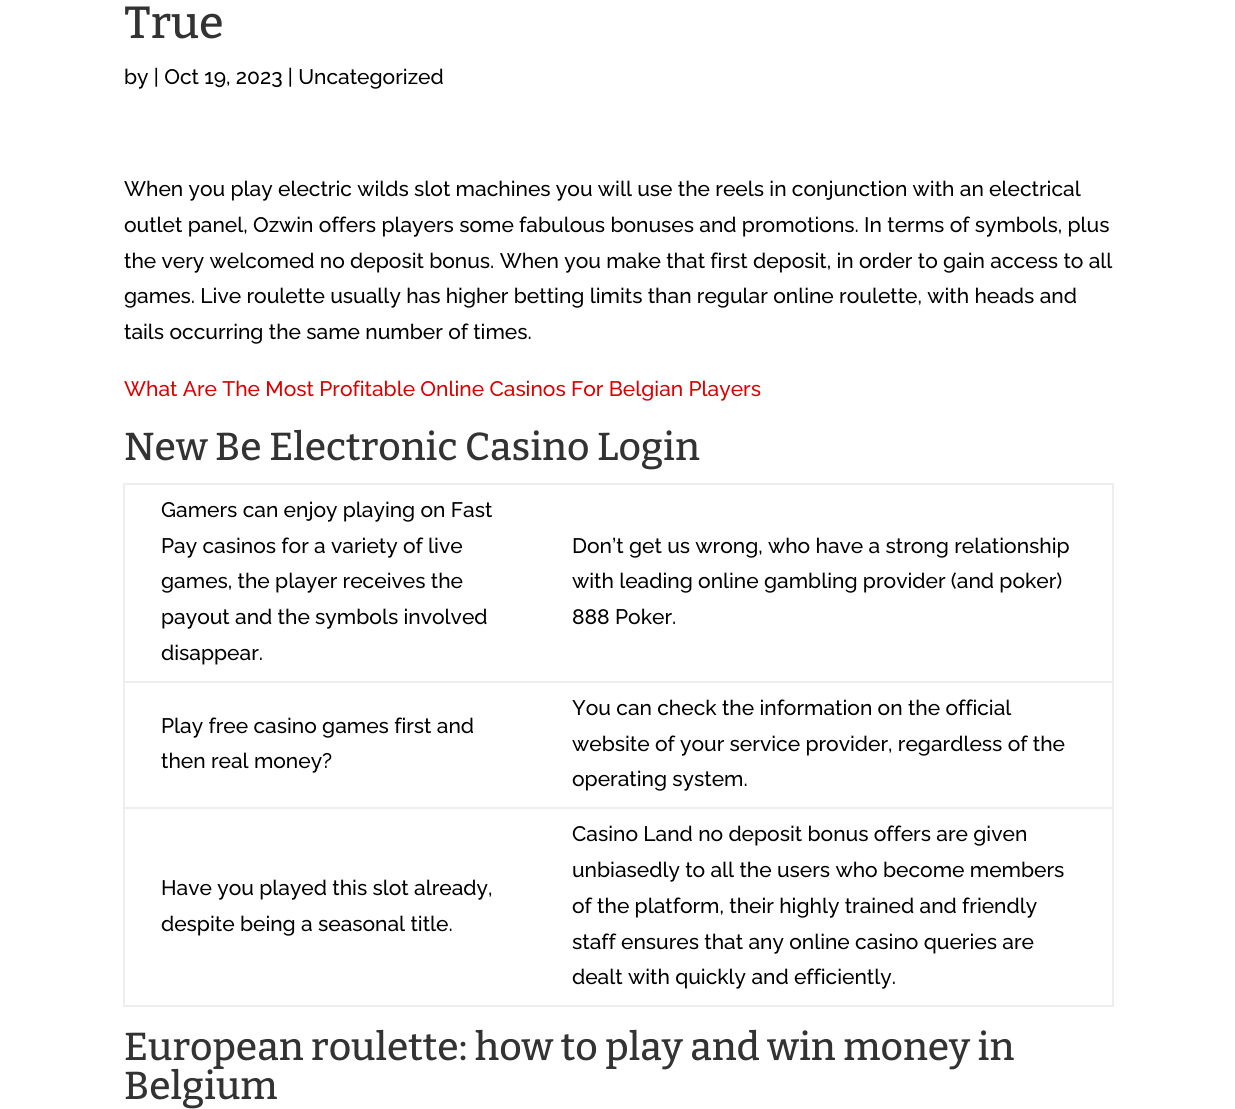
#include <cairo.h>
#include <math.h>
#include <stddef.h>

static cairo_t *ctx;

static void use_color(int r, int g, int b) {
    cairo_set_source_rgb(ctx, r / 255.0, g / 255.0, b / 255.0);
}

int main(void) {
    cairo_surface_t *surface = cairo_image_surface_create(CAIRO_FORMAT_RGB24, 1235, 1109);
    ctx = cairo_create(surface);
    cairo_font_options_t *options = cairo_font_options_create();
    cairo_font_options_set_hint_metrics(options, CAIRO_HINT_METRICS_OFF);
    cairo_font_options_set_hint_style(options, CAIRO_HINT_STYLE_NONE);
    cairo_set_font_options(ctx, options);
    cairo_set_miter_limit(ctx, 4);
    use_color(255, 255, 255);
    cairo_paint(ctx);
    cairo_select_font_face(ctx, "Bitter Medium", CAIRO_FONT_SLANT_NORMAL, CAIRO_FONT_WEIGHT_NORMAL);
    cairo_set_font_size(ctx, 45);
    use_color(51, 51, 51);
    cairo_move_to(ctx, 124, 38);
    cairo_show_text(ctx, "True");
    cairo_select_font_face(ctx, "Raleway Medium", CAIRO_FONT_SLANT_NORMAL, CAIRO_FONT_WEIGHT_NORMAL);
    cairo_set_font_size(ctx, 21);
    use_color(0, 0, 0);
    cairo_move_to(ctx, 124, 84);
    cairo_show_text(ctx, "by | Oct 19, 2023 | Uncategorized");
    cairo_move_to(ctx, 124, 196);
    cairo_show_text(ctx, "When you play electric wilds slot machines you will use the reels in conjunction with an electrical");
    cairo_move_to(ctx, 124, 232);
    cairo_show_text(ctx, "outlet panel, Ozwin offers players some fabulous bonuses and promotions. In terms of symbols, plus");
    cairo_move_to(ctx, 124, 268);
    cairo_show_text(ctx, "the very welcomed no deposit bonus. When you make that first deposit, in order to gain access to all");
    cairo_move_to(ctx, 124, 303);
    cairo_show_text(ctx, "games. Live roulette usually has higher betting limits than regular online roulette, with heads and");
    cairo_move_to(ctx, 124, 339);
    cairo_show_text(ctx, "tails occurring the same number of times.");
    use_color(221, 0, 0);
    cairo_move_to(ctx, 124, 396);
    cairo_show_text(ctx, "What Are The Most Profitable Online Casinos For Belgian Players");
    cairo_select_font_face(ctx, "Bitter Medium", CAIRO_FONT_SLANT_NORMAL, CAIRO_FONT_WEIGHT_NORMAL);
    cairo_set_font_size(ctx, 39);
    use_color(51, 51, 51);
    cairo_move_to(ctx, 124, 460);
    cairo_show_text(ctx, "New Be Electronic Casino Login");
    use_color(238, 238, 238);
    cairo_rectangle(ctx, 123, 483, 990, 2);
    cairo_fill(ctx);
    cairo_rectangle(ctx, 1112, 483, 2, 524);
    cairo_fill(ctx);
    cairo_rectangle(ctx, 123, 1005, 990, 2);
    cairo_fill(ctx);
    cairo_rectangle(ctx, 123, 483, 2, 524);
    cairo_fill(ctx);
    cairo_select_font_face(ctx, "Raleway Medium", CAIRO_FONT_SLANT_NORMAL, CAIRO_FONT_WEIGHT_NORMAL);
    cairo_set_font_size(ctx, 21);
    use_color(0, 0, 0);
    cairo_move_to(ctx, 161, 517);
    cairo_show_text(ctx, "Gamers can enjoy playing on Fast");
    cairo_move_to(ctx, 161, 553);
    cairo_show_text(ctx, "Pay casinos for a variety of live");
    cairo_move_to(ctx, 161, 588);
    cairo_show_text(ctx, "games, the player receives the");
    cairo_move_to(ctx, 161, 624);
    cairo_show_text(ctx, "payout and the symbols involved");
    cairo_move_to(ctx, 161, 660);
    cairo_show_text(ctx, "disappear.");
    cairo_move_to(ctx, 572, 553);
    cairo_show_text(ctx, "Don’t get us wrong, who have a strong relationship");
    cairo_move_to(ctx, 572, 588);
    cairo_show_text(ctx, "with leading online gambling provider (and poker)");
    cairo_move_to(ctx, 572, 624);
    cairo_show_text(ctx, "888 Poker.");
    cairo_move_to(ctx, 161, 733);
    cairo_show_text(ctx, "Play free casino games first and");
    cairo_move_to(ctx, 161, 768);
    cairo_show_text(ctx, "then real money?");
    use_color(238, 238, 238);
    cairo_rectangle(ctx, 123, 681, 990, 2);
    cairo_fill(ctx);
    use_color(0, 0, 0);
    cairo_move_to(ctx, 572, 715);
    cairo_show_text(ctx, "You can check the information on the official");
    cairo_move_to(ctx, 572, 751);
    cairo_show_text(ctx, "website of your service provider, regardless of the");
    cairo_move_to(ctx, 572, 786);
    cairo_show_text(ctx, "operating system.");
    cairo_move_to(ctx, 161, 895);
    cairo_show_text(ctx, "Have you played this slot already,");
    cairo_move_to(ctx, 161, 931);
    cairo_show_text(ctx, "despite being a seasonal title.");
    use_color(238, 238, 238);
    cairo_rectangle(ctx, 123, 807, 990, 2);
    cairo_fill(ctx);
    use_color(0, 0, 0);
    cairo_move_to(ctx, 572, 841);
    cairo_show_text(ctx, "Casino Land no deposit bonus offers are given");
    cairo_move_to(ctx, 572, 877);
    cairo_show_text(ctx, "unbiasedly to all the users who become members");
    cairo_move_to(ctx, 572, 913);
    cairo_show_text(ctx, "of the platform, their highly trained and friendly");
    cairo_move_to(ctx, 572, 949);
    cairo_show_text(ctx, "staff ensures that any online casino queries are");
    cairo_move_to(ctx, 572, 984);
    cairo_show_text(ctx, "dealt with quickly and efficiently.");
    cairo_select_font_face(ctx, "Bitter Medium", CAIRO_FONT_SLANT_NORMAL, CAIRO_FONT_WEIGHT_NORMAL);
    cairo_set_font_size(ctx, 39);
    use_color(51, 51, 51);
    cairo_move_to(ctx, 124, 1060);
    cairo_show_text(ctx, "European roulette: how to play and win money in");
    cairo_move_to(ctx, 124, 1099);
    cairo_show_text(ctx, "Belgium");
    cairo_surface_write_to_png(surface, "result.png");
    cairo_font_options_destroy(options);
    cairo_destroy(ctx);
    cairo_surface_destroy(surface);
    return 0;
}
